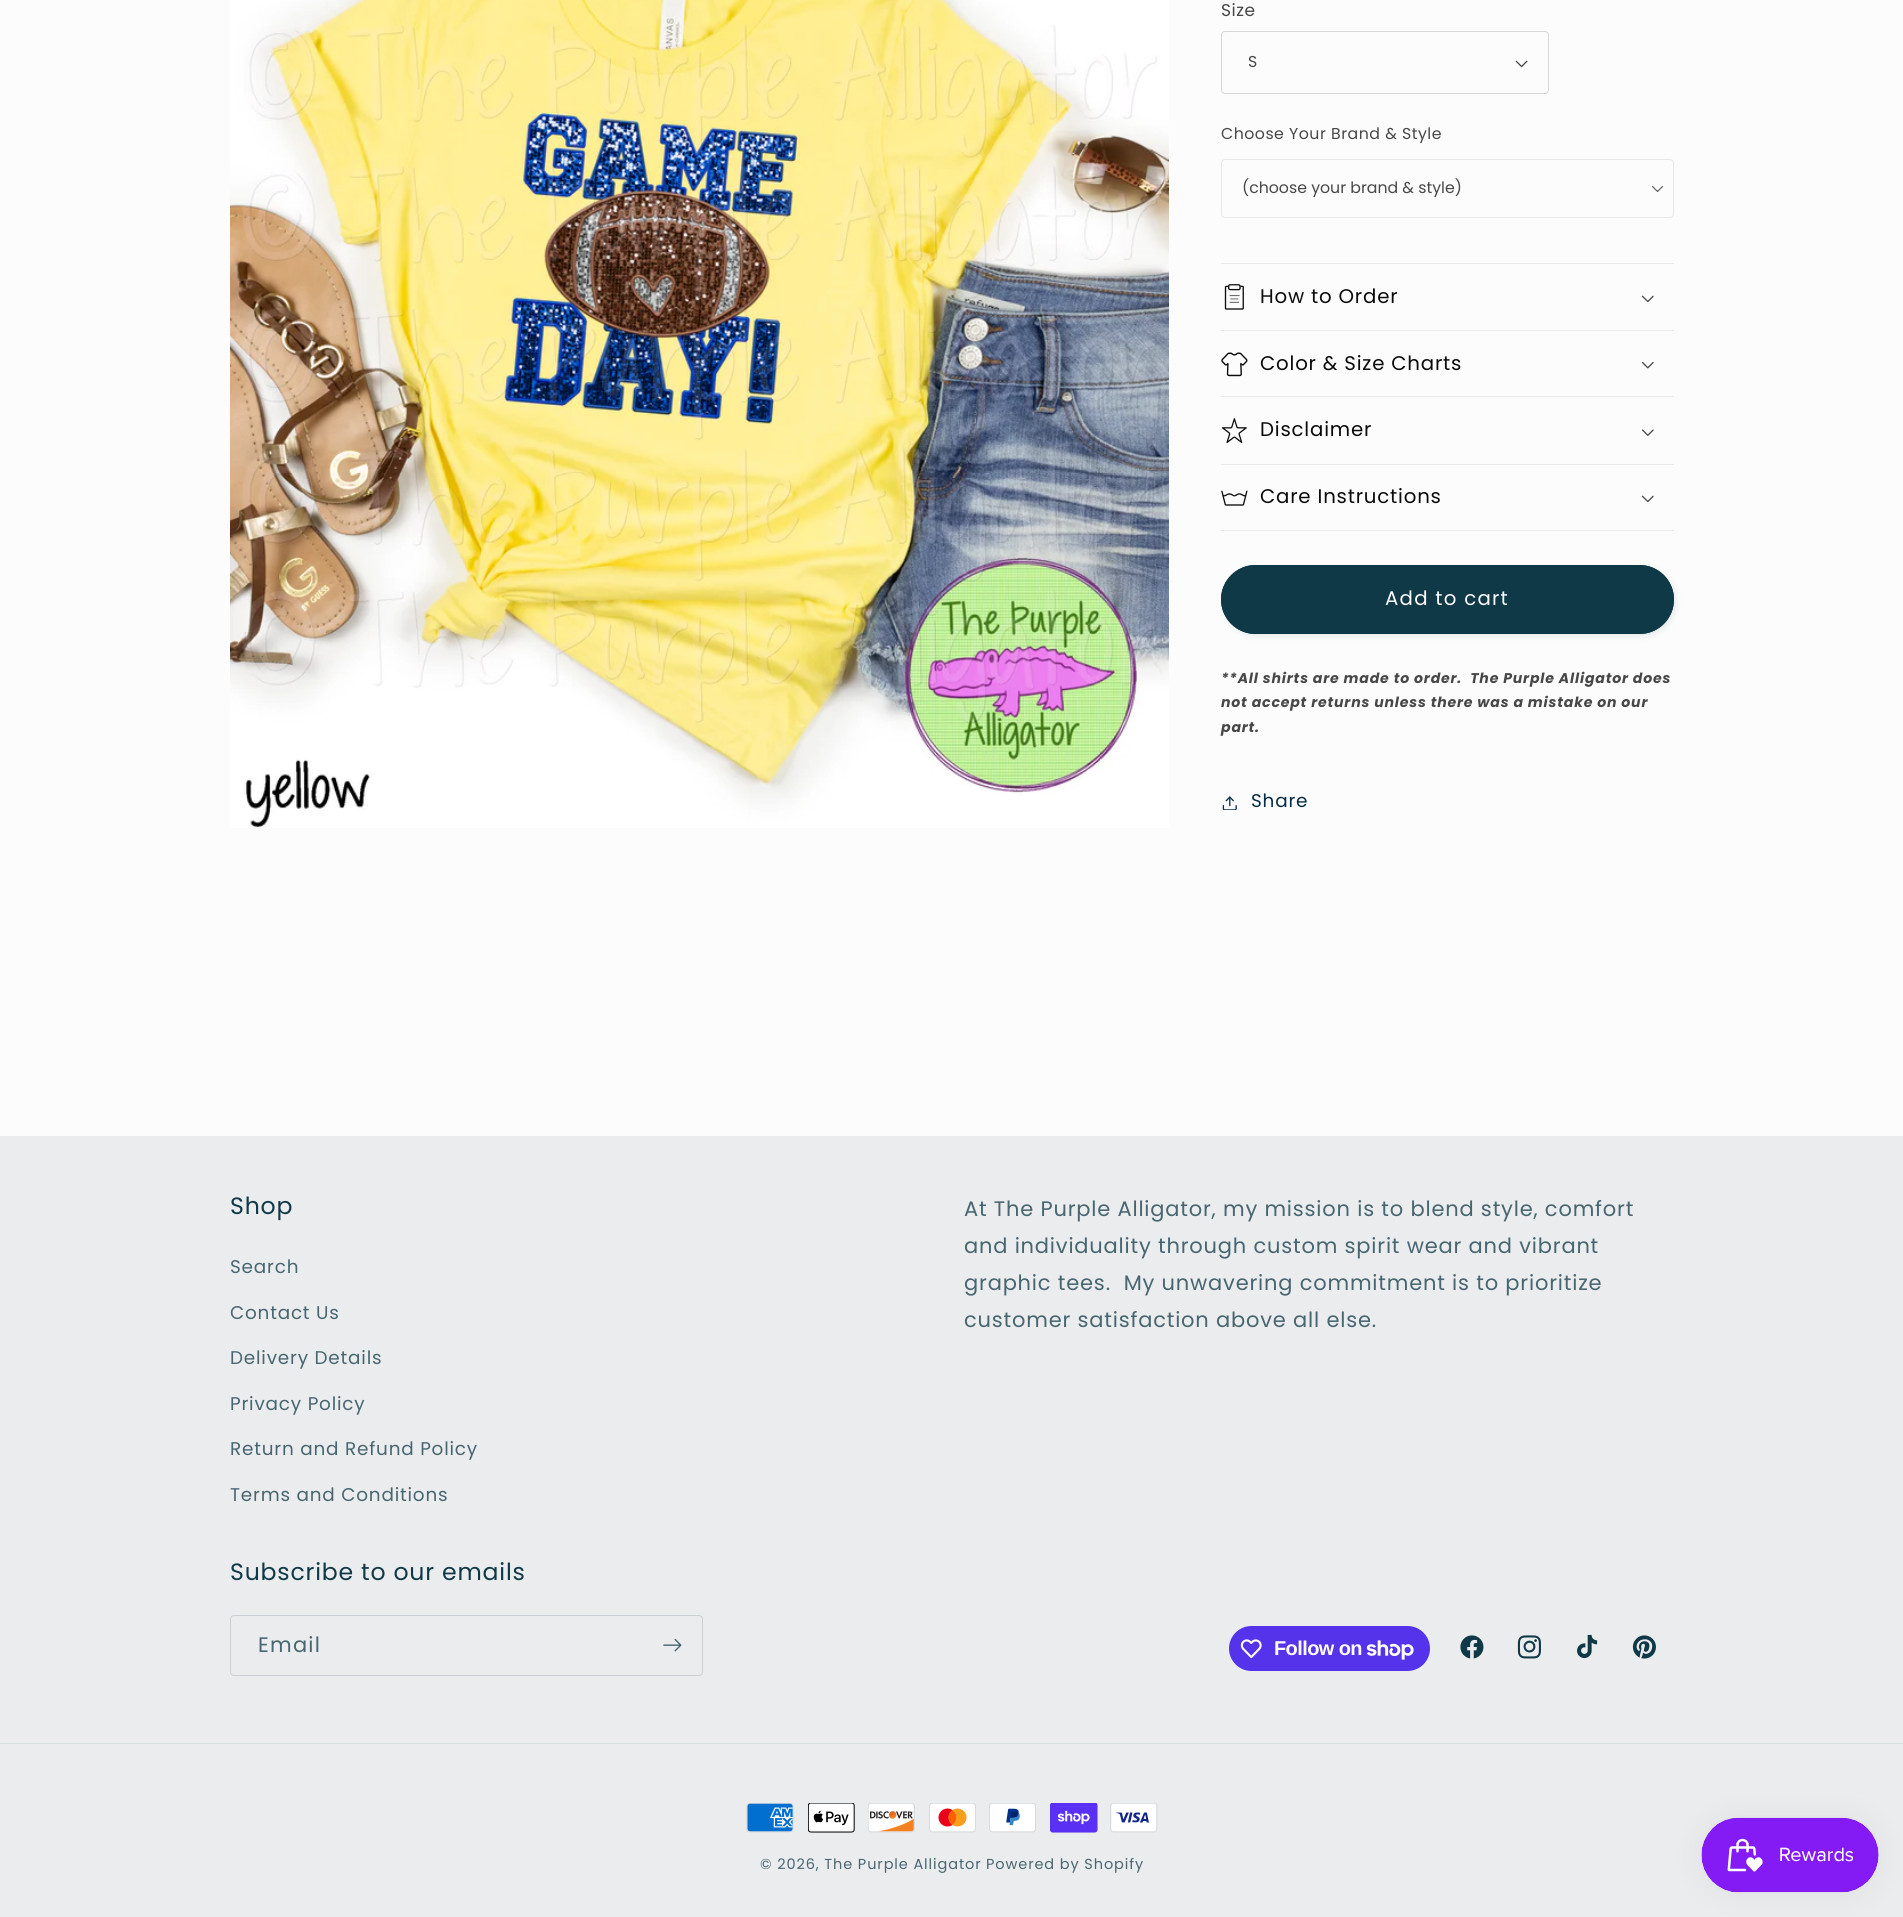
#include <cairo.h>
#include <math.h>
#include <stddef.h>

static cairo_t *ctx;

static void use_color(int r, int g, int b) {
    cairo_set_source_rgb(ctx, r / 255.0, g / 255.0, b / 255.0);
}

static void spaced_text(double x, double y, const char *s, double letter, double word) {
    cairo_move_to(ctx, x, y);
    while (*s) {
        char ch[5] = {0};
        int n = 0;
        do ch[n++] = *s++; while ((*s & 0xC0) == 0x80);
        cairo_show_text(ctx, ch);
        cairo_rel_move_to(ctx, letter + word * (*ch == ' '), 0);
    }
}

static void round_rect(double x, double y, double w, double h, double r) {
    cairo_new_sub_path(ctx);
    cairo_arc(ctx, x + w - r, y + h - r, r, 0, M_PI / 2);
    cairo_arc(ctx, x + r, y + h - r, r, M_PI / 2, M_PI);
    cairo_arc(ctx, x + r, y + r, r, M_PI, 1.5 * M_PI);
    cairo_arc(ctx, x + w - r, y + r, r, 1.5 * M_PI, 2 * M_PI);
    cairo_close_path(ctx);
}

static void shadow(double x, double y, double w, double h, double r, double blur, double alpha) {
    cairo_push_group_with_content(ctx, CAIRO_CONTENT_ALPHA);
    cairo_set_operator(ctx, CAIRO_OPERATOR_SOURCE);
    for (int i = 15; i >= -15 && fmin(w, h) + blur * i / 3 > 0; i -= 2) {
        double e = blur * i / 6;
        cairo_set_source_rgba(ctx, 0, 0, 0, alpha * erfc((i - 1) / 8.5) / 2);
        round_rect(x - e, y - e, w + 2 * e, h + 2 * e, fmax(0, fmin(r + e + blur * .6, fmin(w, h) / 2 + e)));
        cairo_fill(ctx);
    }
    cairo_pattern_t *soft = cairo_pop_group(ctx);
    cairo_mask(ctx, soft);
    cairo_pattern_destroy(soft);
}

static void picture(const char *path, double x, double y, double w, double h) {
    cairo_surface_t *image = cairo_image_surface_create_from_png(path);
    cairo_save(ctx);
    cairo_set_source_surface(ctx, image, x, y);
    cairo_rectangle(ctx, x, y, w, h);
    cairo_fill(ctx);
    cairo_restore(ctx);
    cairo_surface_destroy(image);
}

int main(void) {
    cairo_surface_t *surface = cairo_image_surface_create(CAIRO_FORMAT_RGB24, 1903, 1917);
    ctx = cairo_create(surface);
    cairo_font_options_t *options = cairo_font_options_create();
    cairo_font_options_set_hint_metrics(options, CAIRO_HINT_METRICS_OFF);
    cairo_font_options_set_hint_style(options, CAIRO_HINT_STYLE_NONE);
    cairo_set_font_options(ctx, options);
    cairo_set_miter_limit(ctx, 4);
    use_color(252, 252, 252);
    cairo_paint(ctx);
    picture("img1.png", 230, 0, 939, 828);
    cairo_select_font_face(ctx, "Poppins", CAIRO_FONT_SLANT_NORMAL, CAIRO_FONT_WEIGHT_NORMAL);
    cairo_set_font_size(ctx, 17);
    use_color(71, 71, 71);
    spaced_text(1221, 16, "Size", 0.5, 0);
    picture("img2.png", 1515, 60, 13, 8);
    round_rect(1221.5, 31.5, 327, 62, 3.5);
    cairo_set_source_rgba(ctx, 0.043, 0.043, 0.043, 0.15);
    cairo_set_line_width(ctx, 1);
    cairo_stroke(ctx);
    cairo_set_font_size(ctx, 15.75);
    use_color(71, 71, 71);
    spaced_text(1248, 67, "S", 0.5, 0);
    spaced_text(1221, 139, "Choose Your Brand & Style", 0.5, 0);
    cairo_new_path(ctx);
    cairo_move_to(ctx, 1662.5, 186.5);
    cairo_line_to(ctx, 1657.5, 191.5);
    cairo_line_to(ctx, 1652.5, 186.5);
    use_color(99, 98, 98);
    cairo_set_line_width(ctx, 1.2);
    cairo_set_line_cap(ctx, CAIRO_LINE_CAP_ROUND);
    cairo_set_line_join(ctx, CAIRO_LINE_JOIN_ROUND);
    cairo_stroke(ctx);
    round_rect(1221.5, 159.5, 452, 58, 3.5);
    use_color(231, 231, 231);
    cairo_set_line_width(ctx, 1);
    cairo_set_line_cap(ctx, CAIRO_LINE_CAP_BUTT);
    cairo_set_line_join(ctx, CAIRO_LINE_JOIN_MITER);
    cairo_stroke(ctx);
    use_color(71, 71, 71);
    cairo_move_to(ctx, 1242, 193);
    cairo_show_text(ctx, "(choose your brand & style)");
    use_color(233, 233, 233);
    cairo_rectangle(ctx, 1221, 263, 453, 1);
    cairo_fill(ctx);
    cairo_rectangle(ctx, 1221, 330, 453, 1);
    cairo_fill(ctx);
    picture("img3.png", 1224, 284, 20, 26);
    cairo_set_font_size(ctx, 19.75);
    use_color(11, 11, 11);
    spaced_text(1260, 303, "How to Order", 0.8, 0);
    picture("img4.png", 1642, 295, 12, 8);
    use_color(233, 233, 233);
    cairo_rectangle(ctx, 1221, 396, 453, 1);
    cairo_fill(ctx);
    picture("img5.png", 1221, 352, 27, 25);
    use_color(11, 11, 11);
    spaced_text(1260, 370, "Color & Size Charts", 0.8, 0);
    picture("img6.png", 1642, 362, 12, 7);
    use_color(233, 233, 233);
    cairo_rectangle(ctx, 1221, 464, 453, 1);
    cairo_fill(ctx);
    picture("img7.png", 1221, 418, 26, 26);
    use_color(11, 11, 11);
    spaced_text(1260, 436, "Disclaimer", 0.8, 0);
    picture("img8.png", 1642, 429, 12, 7);
    use_color(233, 233, 233);
    cairo_rectangle(ctx, 1221, 530, 453, 1);
    cairo_fill(ctx);
    picture("img9.png", 1221, 490, 27, 16);
    use_color(11, 11, 11);
    spaced_text(1260, 503, "Care Instructions", 0.8, 0);
    picture("img4.png", 1642, 495, 12, 8);
    use_color(16, 57, 72);
    shadow(1224, 568, 452, 68, 34, 3, 0.1);
    use_color(16, 57, 72);
    round_rect(1221, 565, 453, 69, 34.5);
    cairo_fill(ctx);
    round_rect(1223.5, 567.5, 448, 64, 32);
    cairo_set_line_width(ctx, 5);
    cairo_stroke(ctx);
    use_color(252, 252, 252);
    spaced_text(1385, 605, "Add to cart", 1.25, 0);
    cairo_select_font_face(ctx, "Poppins", CAIRO_FONT_SLANT_ITALIC, CAIRO_FONT_WEIGHT_BOLD);
    cairo_set_font_size(ctx, 14.1);
    use_color(71, 71, 71);
    spaced_text(1221, 683, "**All shirts are made to order.  The Purple Alligator does", 0.8, 0);
    spaced_text(1221, 707, "not accept returns unless there was a mistake on our", 0.8, 0);
    spaced_text(1221, 732, "part.", 0.8, 0);
    picture("img10.png", 1222, 796, 15, 14);
    cairo_select_font_face(ctx, "Poppins", CAIRO_FONT_SLANT_NORMAL, CAIRO_FONT_WEIGHT_NORMAL);
    cairo_set_font_size(ctx, 18.4);
    use_color(5, 44, 70);
    spaced_text(1251, 807, "Share", 0.8, 0);
    use_color(235, 236, 237);
    cairo_rectangle(ctx, 0, 1136, 1903, 781);
    cairo_fill(ctx);
    cairo_set_font_size(ctx, 23.6);
    use_color(16, 57, 72);
    spaced_text(230, 1214, "Shop", 0.8, 0);
    cairo_set_font_size(ctx, 18.4);
    use_color(71, 102, 113);
    spaced_text(230, 1273, "Search", 0.8, 0);
    spaced_text(230, 1319, "Contact Us", 0.8, 0);
    spaced_text(230, 1364, "Delivery Details", 0.8, 0);
    spaced_text(230, 1410, "Privacy Policy", 0.8, 0);
    spaced_text(230, 1455, "Return and Refund Policy", 0.8, 0);
    spaced_text(230, 1501, "Terms and Conditions", 0.8, 0);
    cairo_set_font_size(ctx, 21);
    spaced_text(964, 1216, "At The Purple Alligator, my mission is to blend style, comfort", 0.8, 0);
    spaced_text(964, 1253, "and individuality through custom spirit wear and vibrant", 0.8, 0);
    spaced_text(964, 1290, "graphic tees.  My unwavering commitment is to prioritize", 0.8, 0);
    spaced_text(964, 1327, "customer satisfaction above all else.", 0.8, 0);
    cairo_set_font_size(ctx, 23.6);
    use_color(16, 57, 72);
    spaced_text(230, 1580, "Subscribe to our emails", 0.8, 0);
    round_rect(230.5, 1615.5, 472, 60, 3.5);
    cairo_set_source_rgba(ctx, 0.063, 0.224, 0.282, 0.15);
    cairo_set_line_width(ctx, 1);
    cairo_stroke(ctx);
    cairo_set_font_size(ctx, 21);
    use_color(71, 102, 113);
    spaced_text(258, 1652, "Email", 1.25, 0);
    picture("img11.png", 663, 1638, 19, 14);
    use_color(84, 51, 235);
    round_rect(1229, 1626, 201, 45, 22.5);
    cairo_fill(ctx);
    picture("img12.png", 1240, 1639, 22, 20);
    cairo_select_font_face(ctx, "Liberation Sans", CAIRO_FONT_SLANT_NORMAL, CAIRO_FONT_WEIGHT_BOLD);
    cairo_set_font_size(ctx, 20);
    use_color(252, 252, 252);
    spaced_text(1274, 1655, "Follow on", -0.6, 0);
    picture("img13.png", 1366, 1640, 48, 20);
    picture("img14.png", 1460, 1635, 24, 24);
    picture("img15.png", 1517, 1635, 24, 24);
    picture("img16.png", 1577, 1634, 21, 25);
    picture("img17.png", 1632, 1635, 24, 24);
    use_color(217, 222, 224);
    cairo_rectangle(ctx, 0, 1743, 1903, 1);
    cairo_fill(ctx);
    picture("img18.png", 746, 1803, 48, 30);
    picture("img19.png", 808, 1803, 47, 30);
    picture("img20.png", 868, 1803, 47, 30);
    picture("img21.png", 929, 1803, 47, 30);
    picture("img22.png", 989, 1803, 47, 30);
    picture("img23.png", 1050, 1803, 48, 30);
    picture("img24.png", 1110, 1803, 48, 30);
    cairo_select_font_face(ctx, "Poppins", CAIRO_FONT_SLANT_NORMAL, CAIRO_FONT_WEIGHT_NORMAL);
    cairo_set_font_size(ctx, 14.5);
    use_color(71, 102, 113);
    spaced_text(760, 1869, "© 2026, The Purple Alligator", 0.9, 0);
    spaced_text(986, 1869, "Powered by Shopify", 0.9, 0);
    use_color(0, 0, 0);
    shadow(1701, 1818, 178, 75, 37.5, 15.5, 0.05);
    picture("img25.png", 1701, 1817, 178, 76);
    cairo_surface_write_to_png(surface, "result.png");
    cairo_font_options_destroy(options);
    cairo_destroy(ctx);
    cairo_surface_destroy(surface);
    return 0;
}
